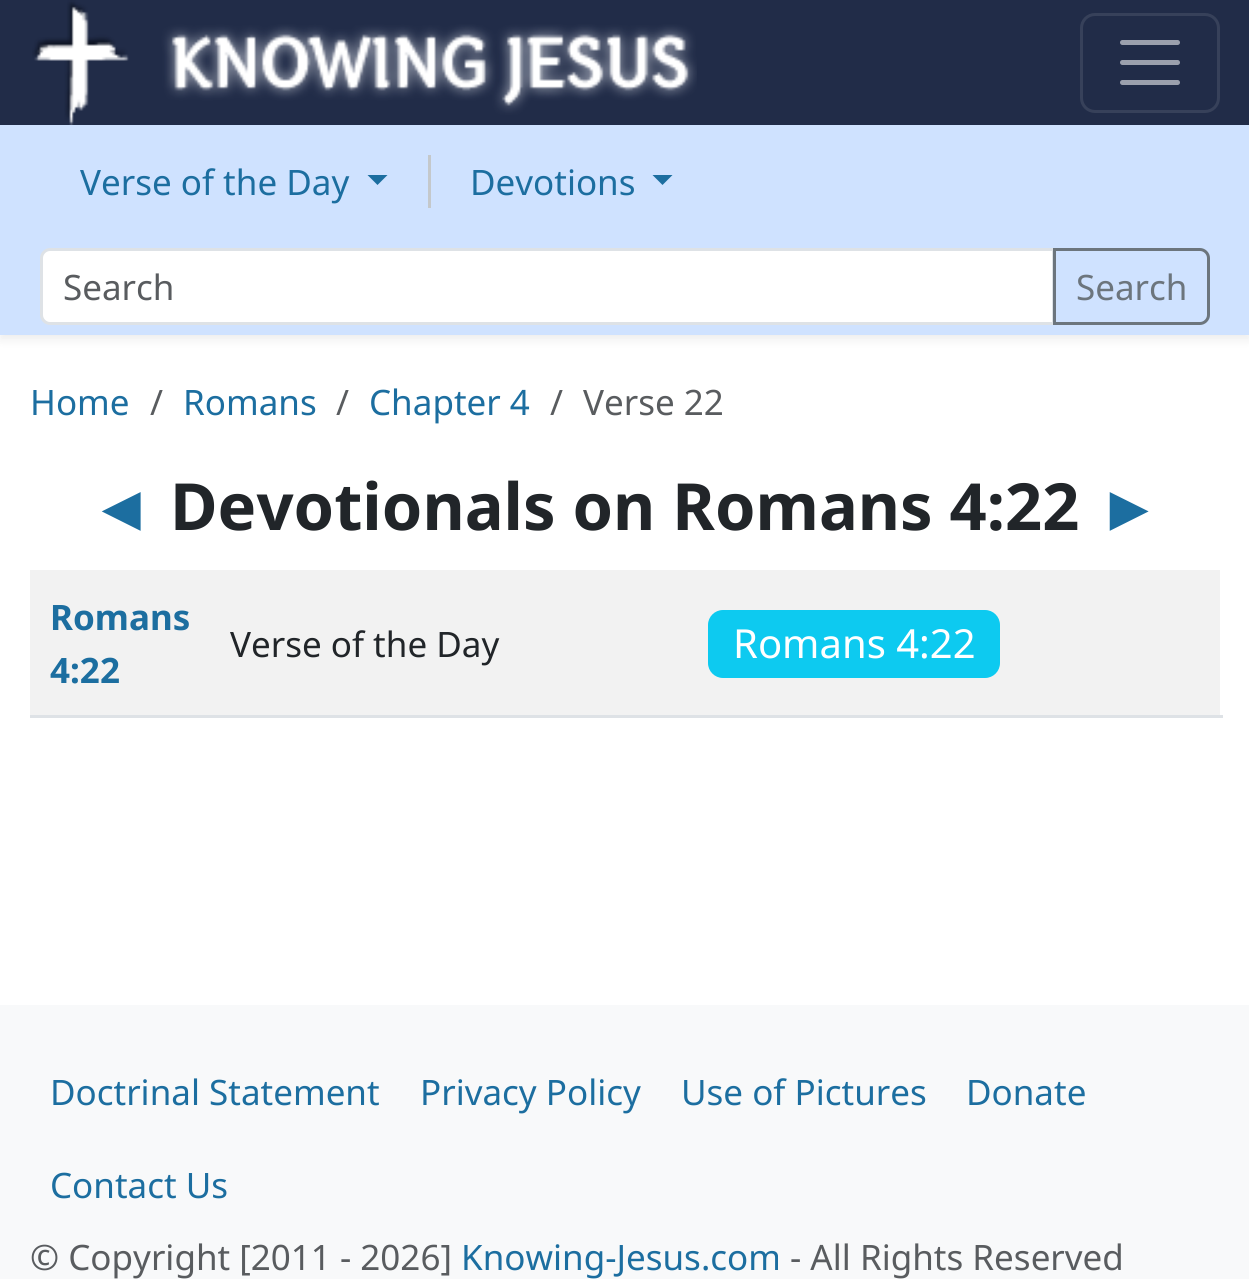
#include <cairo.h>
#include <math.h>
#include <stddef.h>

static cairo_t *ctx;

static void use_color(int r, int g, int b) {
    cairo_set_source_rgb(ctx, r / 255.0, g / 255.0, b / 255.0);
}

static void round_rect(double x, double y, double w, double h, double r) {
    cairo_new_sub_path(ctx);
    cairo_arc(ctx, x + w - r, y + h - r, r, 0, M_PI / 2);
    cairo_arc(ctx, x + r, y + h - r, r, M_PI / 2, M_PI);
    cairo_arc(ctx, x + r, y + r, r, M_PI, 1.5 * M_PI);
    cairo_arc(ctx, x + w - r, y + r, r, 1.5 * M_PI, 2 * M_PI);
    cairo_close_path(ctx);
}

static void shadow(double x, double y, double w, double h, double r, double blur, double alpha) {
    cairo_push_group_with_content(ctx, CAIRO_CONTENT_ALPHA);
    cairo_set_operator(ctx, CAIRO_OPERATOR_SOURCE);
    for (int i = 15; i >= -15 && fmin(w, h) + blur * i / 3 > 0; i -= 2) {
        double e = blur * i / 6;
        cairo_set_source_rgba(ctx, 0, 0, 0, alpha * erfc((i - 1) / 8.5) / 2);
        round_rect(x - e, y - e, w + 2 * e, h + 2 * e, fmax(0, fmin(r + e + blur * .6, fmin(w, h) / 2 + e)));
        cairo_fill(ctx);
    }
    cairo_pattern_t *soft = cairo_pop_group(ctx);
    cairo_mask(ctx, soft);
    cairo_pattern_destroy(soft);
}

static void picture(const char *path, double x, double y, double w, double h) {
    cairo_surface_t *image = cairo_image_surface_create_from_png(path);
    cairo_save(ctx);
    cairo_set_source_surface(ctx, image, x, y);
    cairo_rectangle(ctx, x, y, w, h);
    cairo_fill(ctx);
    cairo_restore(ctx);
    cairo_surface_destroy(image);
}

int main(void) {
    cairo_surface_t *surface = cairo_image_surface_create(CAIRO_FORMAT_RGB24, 1249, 1279);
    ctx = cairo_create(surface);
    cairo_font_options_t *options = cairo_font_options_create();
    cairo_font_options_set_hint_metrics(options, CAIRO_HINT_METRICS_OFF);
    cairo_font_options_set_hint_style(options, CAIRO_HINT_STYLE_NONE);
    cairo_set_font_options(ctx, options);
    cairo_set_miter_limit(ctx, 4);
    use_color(255, 255, 255);
    cairo_paint(ctx);
    use_color(0, 0, 0);
    shadow(0, 130, 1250, 210, 0, 5, 0.07);
    use_color(33, 44, 72);
    cairo_rectangle(ctx, 0, 0, 1249, 125);
    cairo_fill(ctx);
    picture("img1.png", 32, 0, 665, 125);
    round_rect(1081.5, 14.5, 137, 97, 13.5);
    use_color(55, 65, 90);
    cairo_set_line_width(ctx, 3);
    cairo_stroke(ctx);
    cairo_new_path(ctx);
    cairo_move_to(ctx, 1122.5, 42.5);
    cairo_line_to(ctx, 1177.5, 42.5);
    cairo_move_to(ctx, 1122.5, 62.5);
    cairo_line_to(ctx, 1177.5, 62.5);
    cairo_move_to(ctx, 1122.5, 82.5);
    cairo_line_to(ctx, 1177.5, 82.5);
    use_color(155, 160, 173);
    cairo_set_line_width(ctx, 5);
    cairo_set_line_cap(ctx, CAIRO_LINE_CAP_ROUND);
    cairo_stroke(ctx);
    use_color(207, 226, 255);
    cairo_rectangle(ctx, 0, 125, 1249, 210);
    cairo_fill(ctx);
    cairo_select_font_face(ctx, "Noto Sans", CAIRO_FONT_SLANT_NORMAL, CAIRO_FONT_WEIGHT_NORMAL);
    cairo_set_font_size(ctx, 35);
    use_color(28, 110, 160);
    cairo_move_to(ctx, 80, 195);
    cairo_show_text(ctx, "Verse of the Day");
    cairo_new_path(ctx);
    cairo_move_to(ctx, 367.5, 175);
    cairo_line_to(ctx, 387.5, 175);
    cairo_line_to(ctx, 377.5, 185);
    cairo_close_path(ctx);
    cairo_fill(ctx);
    use_color(196, 200, 203);
    cairo_rectangle(ctx, 428, 155, 3, 53);
    cairo_fill(ctx);
    use_color(28, 110, 160);
    cairo_move_to(ctx, 470, 195);
    cairo_show_text(ctx, "Devotions");
    cairo_new_path(ctx);
    cairo_move_to(ctx, 652.5, 175);
    cairo_line_to(ctx, 672.5, 175);
    cairo_line_to(ctx, 662.5, 185);
    cairo_close_path(ctx);
    cairo_fill(ctx);
    use_color(255, 255, 255);
    cairo_new_path(ctx);
    cairo_move_to(ctx, 50, 249.5);
    cairo_line_to(ctx, 1053.5, 249.5);
    cairo_line_to(ctx, 1053.5, 323.5);
    cairo_line_to(ctx, 50, 323.5);
    cairo_curve_to(ctx, 45.5, 323.5, 41.5, 319.5, 41.5, 315);
    cairo_line_to(ctx, 41.5, 258);
    cairo_curve_to(ctx, 41.5, 253.5, 45.5, 249.5, 50, 249.5);
    cairo_close_path(ctx);
    cairo_fill_preserve(ctx);
    use_color(222, 226, 230);
    cairo_set_line_width(ctx, 3);
    cairo_set_line_cap(ctx, CAIRO_LINE_CAP_BUTT);
    cairo_stroke(ctx);
    use_color(89, 92, 95);
    cairo_move_to(ctx, 63, 300);
    cairo_show_text(ctx, "Search");
    cairo_new_path(ctx);
    cairo_move_to(ctx, 1054.5, 249.5);
    cairo_line_to(ctx, 1200, 249.5);
    cairo_curve_to(ctx, 1204.5, 249.5, 1208.5, 253.5, 1208.5, 258);
    cairo_line_to(ctx, 1208.5, 315);
    cairo_curve_to(ctx, 1208.5, 319.5, 1204.5, 323.5, 1200, 323.5);
    cairo_line_to(ctx, 1054.5, 323.5);
    cairo_close_path(ctx);
    use_color(108, 117, 125);
    cairo_stroke(ctx);
    cairo_move_to(ctx, 1076, 300);
    cairo_show_text(ctx, "Search");
    use_color(28, 110, 160);
    cairo_move_to(ctx, 30, 415);
    cairo_show_text(ctx, "Home");
    use_color(89, 92, 95);
    cairo_move_to(ctx, 150, 415);
    cairo_show_text(ctx, "/");
    use_color(28, 110, 160);
    cairo_move_to(ctx, 183, 415);
    cairo_show_text(ctx, "Romans");
    use_color(89, 92, 95);
    cairo_move_to(ctx, 336, 415);
    cairo_show_text(ctx, "/");
    use_color(28, 110, 160);
    cairo_move_to(ctx, 369, 415);
    cairo_show_text(ctx, "Chapter 4");
    use_color(89, 92, 95);
    cairo_move_to(ctx, 550, 415);
    cairo_show_text(ctx, "/");
    cairo_move_to(ctx, 583, 415);
    cairo_show_text(ctx, "Verse 22");
    cairo_select_font_face(ctx, "Liberation Sans", CAIRO_FONT_SLANT_NORMAL, CAIRO_FONT_WEIGHT_BOLD);
    cairo_set_font_size(ctx, 65);
    use_color(28, 110, 160);
    cairo_move_to(ctx, 89, 530);
    cairo_show_text(ctx, "◄");
    cairo_select_font_face(ctx, "Noto Sans", CAIRO_FONT_SLANT_NORMAL, CAIRO_FONT_WEIGHT_BOLD);
    use_color(33, 37, 41);
    cairo_move_to(ctx, 170, 530);
    cairo_show_text(ctx, "Devotionals on Romans 4:22");
    cairo_select_font_face(ctx, "Liberation Sans", CAIRO_FONT_SLANT_NORMAL, CAIRO_FONT_WEIGHT_BOLD);
    use_color(28, 110, 160);
    cairo_move_to(ctx, 1097, 530);
    cairo_show_text(ctx, "►");
    use_color(242, 242, 242);
    cairo_rectangle(ctx, 30, 570, 1190, 145);
    cairo_fill(ctx);
    cairo_select_font_face(ctx, "Noto Sans", CAIRO_FONT_SLANT_NORMAL, CAIRO_FONT_WEIGHT_BOLD);
    cairo_set_font_size(ctx, 35);
    use_color(28, 110, 160);
    cairo_move_to(ctx, 50, 630);
    cairo_show_text(ctx, "Romans");
    cairo_move_to(ctx, 50, 683);
    cairo_show_text(ctx, "4:22");
    cairo_select_font_face(ctx, "Noto Sans", CAIRO_FONT_SLANT_NORMAL, CAIRO_FONT_WEIGHT_NORMAL);
    use_color(33, 37, 41);
    cairo_move_to(ctx, 230, 657);
    cairo_show_text(ctx, "Verse of the Day");
    use_color(222, 226, 230);
    cairo_rectangle(ctx, 30, 715, 1193, 3);
    cairo_fill(ctx);
    use_color(13, 202, 240);
    round_rect(708, 610, 292, 68, 15);
    cairo_fill(ctx);
    cairo_set_font_size(ctx, 40);
    use_color(255, 255, 255);
    cairo_move_to(ctx, 733, 658);
    cairo_show_text(ctx, "Romans 4:22");
    use_color(248, 249, 250);
    cairo_rectangle(ctx, 0, 1005, 1249, 274);
    cairo_fill(ctx);
    cairo_set_font_size(ctx, 35);
    use_color(28, 110, 160);
    cairo_move_to(ctx, 50, 1105);
    cairo_show_text(ctx, "Doctrinal Statement");
    cairo_move_to(ctx, 420, 1105);
    cairo_show_text(ctx, "Privacy Policy");
    cairo_move_to(ctx, 681, 1105);
    cairo_show_text(ctx, "Use of Pictures");
    cairo_move_to(ctx, 966, 1105);
    cairo_show_text(ctx, "Donate");
    cairo_move_to(ctx, 50, 1198);
    cairo_show_text(ctx, "Contact Us");
    use_color(89, 92, 95);
    cairo_move_to(ctx, 30, 1270);
    cairo_show_text(ctx, "© Copyright [2011 - 2026]");
    use_color(28, 110, 160);
    cairo_move_to(ctx, 461, 1270);
    cairo_show_text(ctx, "Knowing-Jesus.com");
    use_color(89, 92, 95);
    cairo_move_to(ctx, 790, 1270);
    cairo_show_text(ctx, "- All Rights Reserved");
    cairo_surface_write_to_png(surface, "result.png");
    cairo_font_options_destroy(options);
    cairo_destroy(ctx);
    cairo_surface_destroy(surface);
    return 0;
}
